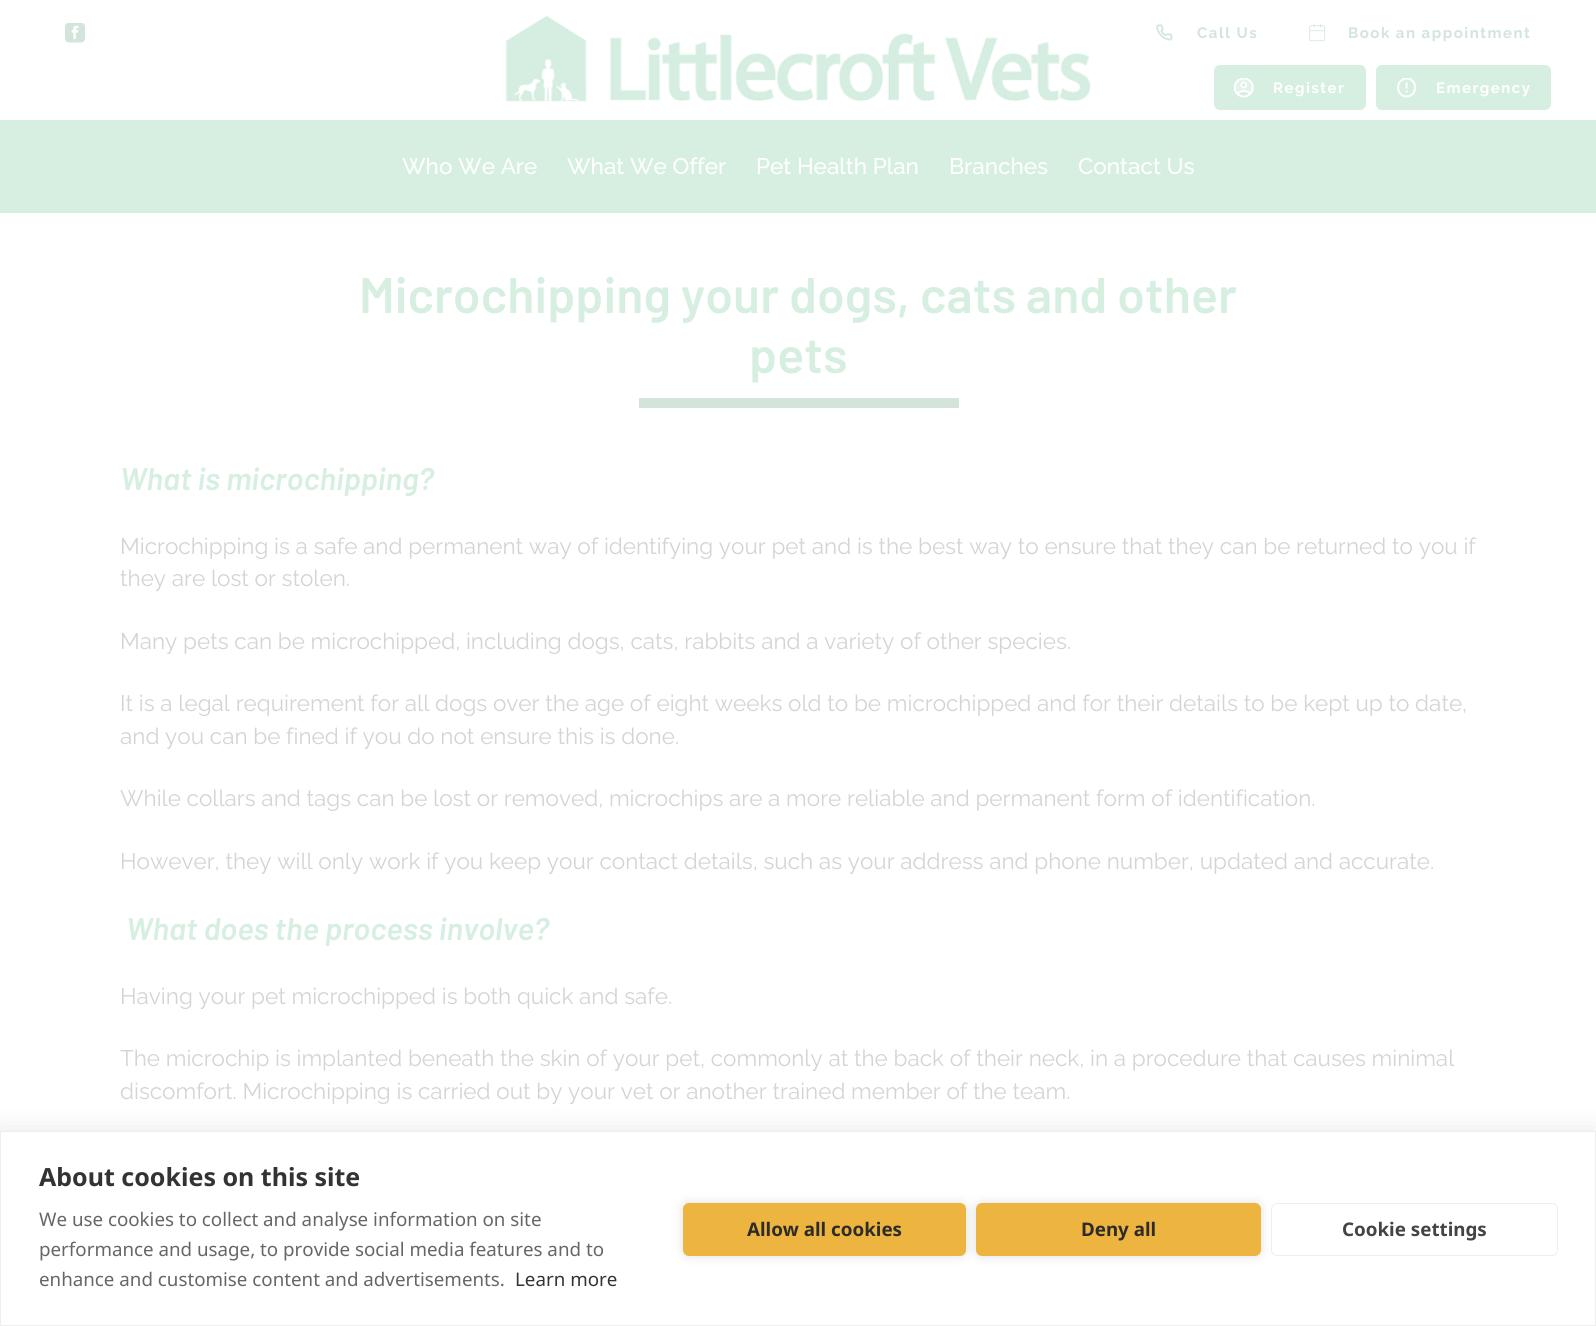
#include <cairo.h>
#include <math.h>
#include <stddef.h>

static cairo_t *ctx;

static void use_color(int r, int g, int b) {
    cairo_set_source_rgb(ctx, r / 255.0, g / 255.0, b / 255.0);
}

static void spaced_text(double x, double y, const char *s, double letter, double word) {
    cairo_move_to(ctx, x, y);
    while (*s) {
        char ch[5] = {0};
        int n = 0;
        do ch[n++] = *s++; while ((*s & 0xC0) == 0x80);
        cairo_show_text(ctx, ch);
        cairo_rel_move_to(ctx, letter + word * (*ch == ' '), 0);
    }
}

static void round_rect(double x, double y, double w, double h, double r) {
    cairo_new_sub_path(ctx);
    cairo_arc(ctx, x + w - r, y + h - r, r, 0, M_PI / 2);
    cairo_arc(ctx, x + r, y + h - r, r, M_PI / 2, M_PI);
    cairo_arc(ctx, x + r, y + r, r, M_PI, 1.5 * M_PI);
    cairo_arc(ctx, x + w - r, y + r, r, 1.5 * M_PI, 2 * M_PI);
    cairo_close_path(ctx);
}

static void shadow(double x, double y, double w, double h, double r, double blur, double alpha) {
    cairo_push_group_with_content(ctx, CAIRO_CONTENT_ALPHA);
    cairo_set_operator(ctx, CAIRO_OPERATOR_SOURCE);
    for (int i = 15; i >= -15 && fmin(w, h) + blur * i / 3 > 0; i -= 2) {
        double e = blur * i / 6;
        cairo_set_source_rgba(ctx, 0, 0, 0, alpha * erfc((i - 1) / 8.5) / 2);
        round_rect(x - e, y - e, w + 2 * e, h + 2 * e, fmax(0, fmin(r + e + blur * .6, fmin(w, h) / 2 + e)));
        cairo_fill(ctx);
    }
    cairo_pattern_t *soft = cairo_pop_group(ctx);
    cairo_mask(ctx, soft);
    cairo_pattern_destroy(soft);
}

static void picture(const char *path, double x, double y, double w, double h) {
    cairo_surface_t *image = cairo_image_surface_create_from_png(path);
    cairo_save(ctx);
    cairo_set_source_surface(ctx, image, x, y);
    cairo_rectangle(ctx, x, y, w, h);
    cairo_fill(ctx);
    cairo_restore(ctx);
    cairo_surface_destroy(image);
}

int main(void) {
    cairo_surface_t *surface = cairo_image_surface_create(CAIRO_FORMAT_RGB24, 1596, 1326);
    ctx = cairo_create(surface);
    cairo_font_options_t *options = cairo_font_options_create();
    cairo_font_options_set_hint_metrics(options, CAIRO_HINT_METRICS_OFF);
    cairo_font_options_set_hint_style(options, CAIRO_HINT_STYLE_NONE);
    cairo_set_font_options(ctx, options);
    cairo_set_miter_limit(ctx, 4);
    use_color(255, 255, 255);
    cairo_paint(ctx);
    picture("img1.png", 65, 23, 20, 20);
    picture("img2.png", 505, 15, 587, 87);
    picture("img3.png", 1156, 24, 17, 17);
    cairo_select_font_face(ctx, "Raleway", CAIRO_FONT_SLANT_NORMAL, CAIRO_FONT_WEIGHT_BOLD);
    cairo_set_font_size(ctx, 15);
    use_color(211, 229, 219);
    spaced_text(1197, 38, "Call Us", 1.5, 0);
    picture("img4.png", 1309, 24, 17, 18);
    spaced_text(1348, 38, "Book an appointment", 1.5, 0);
    use_color(214, 239, 225);
    round_rect(1214, 65, 152, 45, 6);
    cairo_fill(ctx);
    picture("img5.png", 1234, 78, 20, 20);
    use_color(255, 255, 255);
    spaced_text(1273, 93, "Register", 1.5, 0);
    use_color(214, 239, 225);
    round_rect(1376, 65, 175, 45, 6);
    cairo_fill(ctx);
    picture("img6.png", 1397, 78, 19, 20);
    use_color(255, 255, 255);
    spaced_text(1436, 93, "Emergency", 1.5, 0);
    use_color(214, 239, 225);
    cairo_rectangle(ctx, 0, 120, 1596, 93);
    cairo_fill(ctx);
    cairo_select_font_face(ctx, "Raleway Medium", CAIRO_FONT_SLANT_NORMAL, CAIRO_FONT_WEIGHT_NORMAL);
    cairo_set_font_size(ctx, 22.5);
    use_color(255, 255, 255);
    cairo_move_to(ctx, 402, 174);
    cairo_show_text(ctx, "Who We Are");
    cairo_move_to(ctx, 567, 174);
    cairo_show_text(ctx, "What We Offer");
    cairo_move_to(ctx, 756, 174);
    cairo_show_text(ctx, "Pet Health Plan");
    cairo_move_to(ctx, 949, 174);
    cairo_show_text(ctx, "Branches");
    cairo_move_to(ctx, 1078, 174);
    cairo_show_text(ctx, "Contact Us");
    cairo_select_font_face(ctx, "Barlow SemiBold", CAIRO_FONT_SLANT_NORMAL, CAIRO_FONT_WEIGHT_NORMAL);
    cairo_set_font_size(ctx, 50);
    use_color(214, 239, 225);
    cairo_move_to(ctx, 359, 313);
    cairo_show_text(ctx, "Microchipping your dogs, cats and other");
    cairo_move_to(ctx, 749, 373);
    cairo_show_text(ctx, "pets");
    use_color(211, 229, 219);
    cairo_rectangle(ctx, 639, 398, 320, 10);
    cairo_fill(ctx);
    cairo_select_font_face(ctx, "Barlow SemiBold", CAIRO_FONT_SLANT_ITALIC, CAIRO_FONT_WEIGHT_NORMAL);
    cairo_set_font_size(ctx, 31.25);
    use_color(214, 239, 225);
    cairo_move_to(ctx, 120, 490);
    cairo_show_text(ctx, "What is microchipping?");
    cairo_select_font_face(ctx, "Raleway", CAIRO_FONT_SLANT_NORMAL, CAIRO_FONT_WEIGHT_NORMAL);
    cairo_set_font_size(ctx, 22.5);
    use_color(212, 212, 212);
    cairo_move_to(ctx, 120, 554);
    cairo_show_text(ctx, "Microchipping is a safe and permanent way of identifying your pet and is the best way to ensure that they can be returned to you if");
    cairo_move_to(ctx, 120, 586);
    cairo_show_text(ctx, "they are lost or stolen.");
    cairo_move_to(ctx, 120, 649);
    cairo_show_text(ctx, "Many pets can be microchipped, including dogs, cats, rabbits and a variety of other species.");
    cairo_move_to(ctx, 120, 711);
    cairo_show_text(ctx, "It is a legal requirement for all dogs over the age of eight weeks old to be microchipped and for their details to be kept up to date,");
    cairo_move_to(ctx, 120, 744);
    cairo_show_text(ctx, "and you can be fined if you do not ensure this is done.");
    cairo_move_to(ctx, 120, 806);
    cairo_show_text(ctx, "While collars and tags can be lost or removed, microchips are a more reliable and permanent form of identification.");
    cairo_move_to(ctx, 120, 869);
    cairo_show_text(ctx, "However, they will only work if you keep your contact details, such as your address and phone number, updated and accurate.");
    cairo_select_font_face(ctx, "Barlow SemiBold", CAIRO_FONT_SLANT_ITALIC, CAIRO_FONT_WEIGHT_NORMAL);
    cairo_set_font_size(ctx, 31.25);
    use_color(214, 239, 225);
    cairo_move_to(ctx, 126, 940);
    cairo_show_text(ctx, "What does the process involve?");
    cairo_select_font_face(ctx, "Raleway", CAIRO_FONT_SLANT_NORMAL, CAIRO_FONT_WEIGHT_NORMAL);
    cairo_set_font_size(ctx, 22.5);
    use_color(212, 212, 212);
    cairo_move_to(ctx, 120, 1004);
    cairo_show_text(ctx, "Having your pet microchipped is both quick and safe.");
    cairo_move_to(ctx, 120, 1066);
    cairo_show_text(ctx, "The microchip is implanted beneath the skin of your pet, commonly at the back of their neck, in a procedure that causes minimal");
    cairo_move_to(ctx, 120, 1099);
    cairo_show_text(ctx, "discomfort. Microchipping is carried out by your vet or another trained member of the team.");
    use_color(0, 0, 0);
    shadow(0, 1131, 1596, 195, 0, 12.5, 0.1);
    use_color(255, 255, 255);
    cairo_rectangle(ctx, 0.5, 1131.5, 1595, 194);
    cairo_fill_preserve(ctx);
    use_color(238, 238, 238);
    cairo_set_line_width(ctx, 1);
    cairo_stroke(ctx);
    cairo_select_font_face(ctx, "Noto Sans", CAIRO_FONT_SLANT_NORMAL, CAIRO_FONT_WEIGHT_BOLD);
    cairo_set_font_size(ctx, 25);
    use_color(51, 51, 51);
    cairo_move_to(ctx, 39, 1186);
    cairo_show_text(ctx, "About cookies on this site");
    cairo_select_font_face(ctx, "Noto Sans", CAIRO_FONT_SLANT_NORMAL, CAIRO_FONT_WEIGHT_NORMAL);
    cairo_set_font_size(ctx, 18.75);
    use_color(102, 102, 102);
    cairo_move_to(ctx, 39, 1226);
    cairo_show_text(ctx, "We use cookies to collect and analyse information on site");
    cairo_move_to(ctx, 39, 1256);
    cairo_show_text(ctx, "performance and usage, to provide social media features and to");
    cairo_move_to(ctx, 39, 1286);
    cairo_show_text(ctx, "enhance and customise content and advertisements.");
    use_color(51, 51, 51);
    cairo_move_to(ctx, 515, 1286);
    cairo_show_text(ctx, "Learn more");
    use_color(0, 0, 0);
    shadow(683, 1203, 283, 53, 6, 6, 0.12);
    use_color(237, 181, 64);
    round_rect(683, 1203, 283, 53, 6);
    cairo_fill(ctx);
    cairo_select_font_face(ctx, "Noto Sans", CAIRO_FONT_SLANT_NORMAL, CAIRO_FONT_WEIGHT_BOLD);
    use_color(46, 43, 41);
    cairo_move_to(ctx, 747, 1236);
    cairo_show_text(ctx, "Allow all cookies");
    use_color(0, 0, 0);
    shadow(976, 1203, 285, 53, 6, 6, 0.12);
    use_color(237, 181, 64);
    round_rect(976, 1203, 285, 53, 6);
    cairo_fill(ctx);
    use_color(46, 43, 41);
    cairo_move_to(ctx, 1081, 1236);
    cairo_show_text(ctx, "Deny all");
    round_rect(1271.5, 1203.5, 286, 52, 5.5);
    use_color(238, 238, 238);
    cairo_stroke(ctx);
    use_color(68, 68, 68);
    cairo_move_to(ctx, 1342, 1236);
    cairo_show_text(ctx, "Cookie settings");
    cairo_surface_write_to_png(surface, "result.png");
    cairo_font_options_destroy(options);
    cairo_destroy(ctx);
    cairo_surface_destroy(surface);
    return 0;
}
